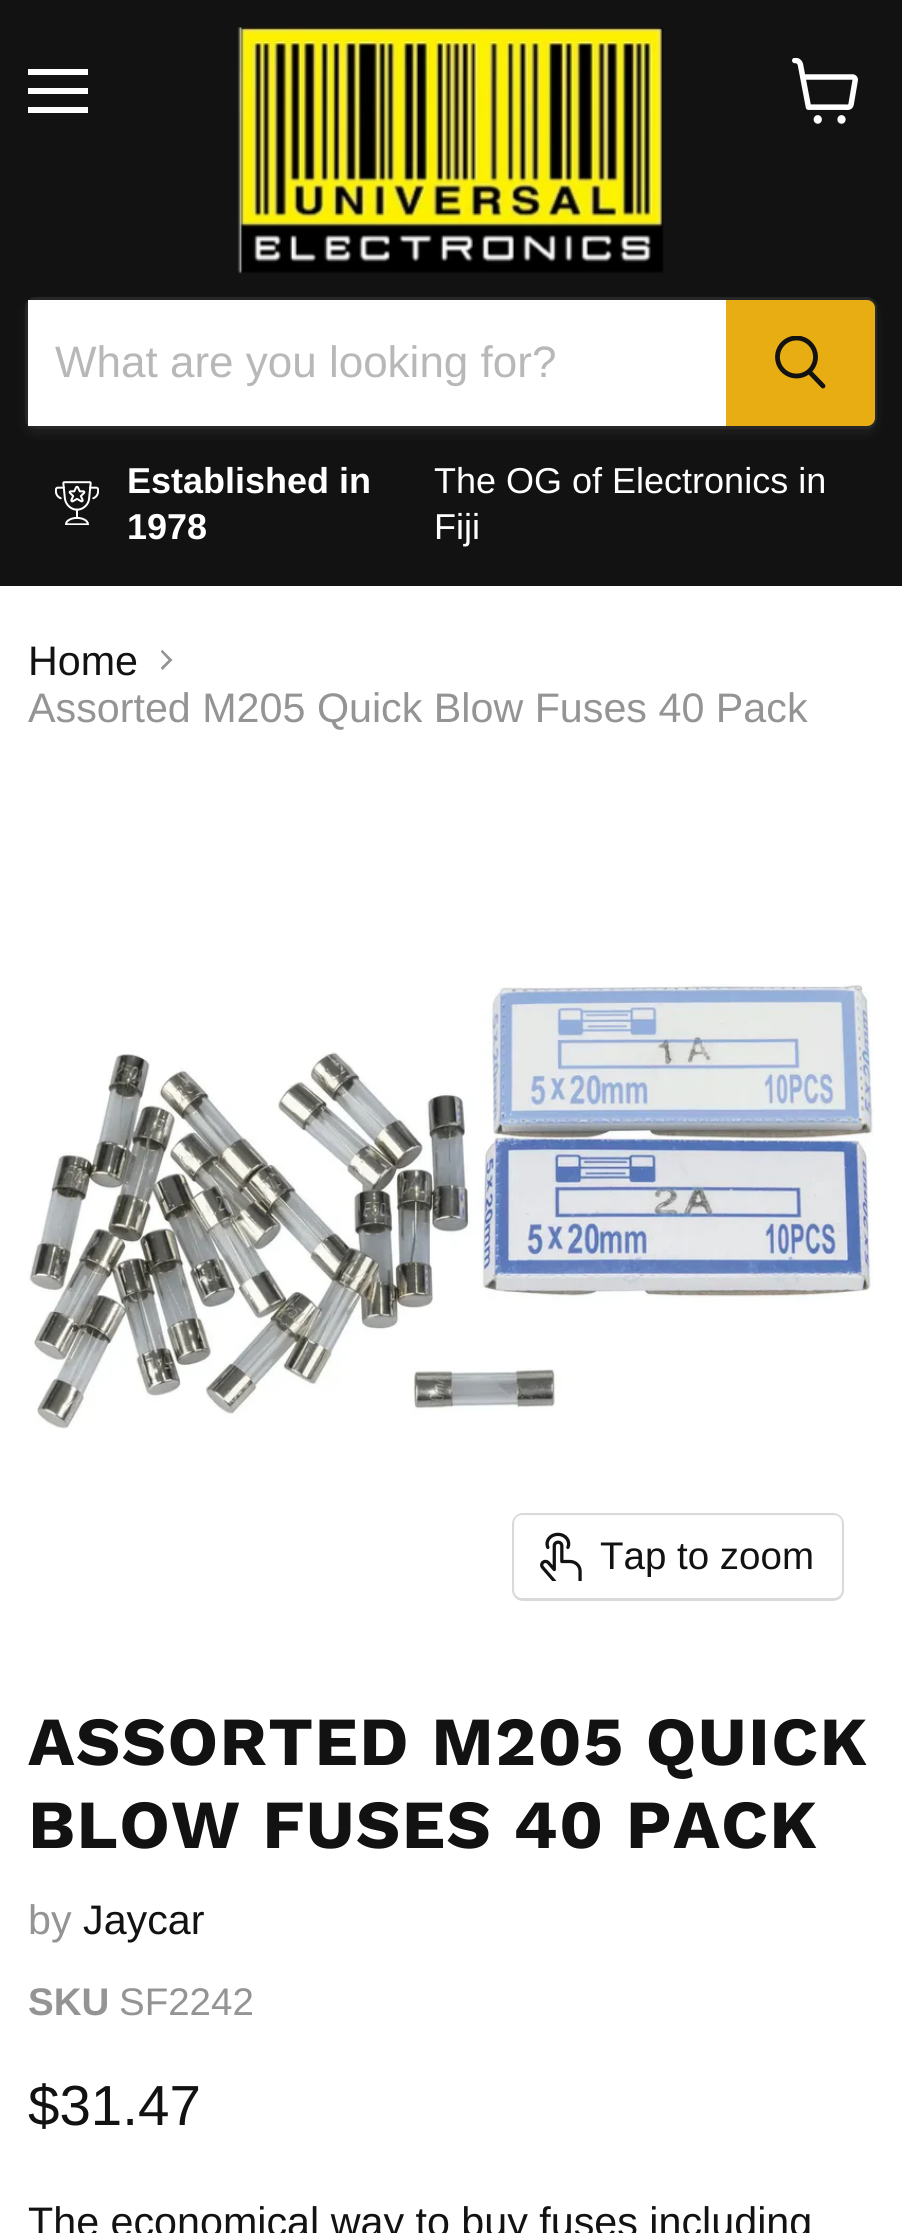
#include <cairo.h>
#include <math.h>
#include <stddef.h>

static cairo_t *ctx;

static void use_color(int r, int g, int b) {
    cairo_set_source_rgb(ctx, r / 255.0, g / 255.0, b / 255.0);
}

static void spaced_text(double x, double y, const char *s, double letter, double word) {
    cairo_move_to(ctx, x, y);
    while (*s) {
        char ch[5] = {0};
        int n = 0;
        do ch[n++] = *s++; while ((*s & 0xC0) == 0x80);
        cairo_show_text(ctx, ch);
        cairo_rel_move_to(ctx, letter + word * (*ch == ' '), 0);
    }
}

static void round_rect(double x, double y, double w, double h, double r) {
    cairo_new_sub_path(ctx);
    cairo_arc(ctx, x + w - r, y + h - r, r, 0, M_PI / 2);
    cairo_arc(ctx, x + r, y + h - r, r, M_PI / 2, M_PI);
    cairo_arc(ctx, x + r, y + r, r, M_PI, 1.5 * M_PI);
    cairo_arc(ctx, x + w - r, y + r, r, 1.5 * M_PI, 2 * M_PI);
    cairo_close_path(ctx);
}

static void shadow(double x, double y, double w, double h, double r, double blur, double alpha) {
    cairo_push_group_with_content(ctx, CAIRO_CONTENT_ALPHA);
    cairo_set_operator(ctx, CAIRO_OPERATOR_SOURCE);
    for (int i = 15; i >= -15 && fmin(w, h) + blur * i / 3 > 0; i -= 2) {
        double e = blur * i / 6;
        cairo_set_source_rgba(ctx, 0, 0, 0, alpha * erfc((i - 1) / 8.5) / 2);
        round_rect(x - e, y - e, w + 2 * e, h + 2 * e, fmax(0, fmin(r + e + blur * .6, fmin(w, h) / 2 + e)));
        cairo_fill(ctx);
    }
    cairo_pattern_t *soft = cairo_pop_group(ctx);
    cairo_mask(ctx, soft);
    cairo_pattern_destroy(soft);
}

static void picture(const char *path, double x, double y, double w, double h) {
    cairo_surface_t *image = cairo_image_surface_create_from_png(path);
    cairo_save(ctx);
    cairo_set_source_surface(ctx, image, x, y);
    cairo_rectangle(ctx, x, y, w, h);
    cairo_fill(ctx);
    cairo_restore(ctx);
    cairo_surface_destroy(image);
}

int main(void) {
    cairo_surface_t *surface = cairo_image_surface_create(CAIRO_FORMAT_RGB24, 902, 2233);
    ctx = cairo_create(surface);
    cairo_font_options_t *options = cairo_font_options_create();
    cairo_font_options_set_hint_metrics(options, CAIRO_HINT_METRICS_OFF);
    cairo_font_options_set_hint_style(options, CAIRO_HINT_STYLE_NONE);
    cairo_set_font_options(ctx, options);
    cairo_set_miter_limit(ctx, 4);
    use_color(255, 255, 255);
    cairo_paint(ctx);
    use_color(18, 18, 18);
    cairo_rectangle(ctx, 0, 0, 902, 586);
    cairo_fill(ctx);
    use_color(255, 255, 255);
    cairo_rectangle(ctx, 28, 69, 60, 6);
    cairo_fill(ctx);
    cairo_rectangle(ctx, 28, 88, 60, 6);
    cairo_fill(ctx);
    cairo_rectangle(ctx, 28, 107, 60, 6);
    cairo_fill(ctx);
    picture("img1.png", 792, 58, 66, 66);
    picture("img2.png", 237, 27, 427, 247);
    cairo_save(ctx);
    cairo_set_fill_rule(ctx, CAIRO_FILL_RULE_EVEN_ODD);
    cairo_new_path(ctx);
    cairo_move_to(ctx, 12, 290);
    cairo_line_to(ctx, 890, 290);
    cairo_line_to(ctx, 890, 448);
    cairo_line_to(ctx, 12, 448);
    cairo_close_path(ctx);
    cairo_move_to(ctx, 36, 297);
    cairo_line_to(ctx, 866, 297);
    cairo_curve_to(ctx, 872, 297, 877, 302, 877, 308);
    cairo_line_to(ctx, 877, 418);
    cairo_curve_to(ctx, 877, 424, 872, 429, 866, 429);
    cairo_line_to(ctx, 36, 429);
    cairo_curve_to(ctx, 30, 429, 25, 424, 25, 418);
    cairo_line_to(ctx, 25, 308);
    cairo_curve_to(ctx, 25, 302, 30, 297, 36, 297);
    cairo_close_path(ctx);
    cairo_clip(ctx);
    use_color(128, 128, 128);
    shadow(25, 303, 852, 132, 11, 4, 0.11);
    cairo_restore(ctx);
    round_rect(26.5, 298.5, 849, 129, 9.5);
    cairo_set_source_rgba(ctx, 0.502, 0.502, 0.502, 0.2);
    cairo_set_line_width(ctx, 3);
    cairo_stroke(ctx);
    use_color(255, 255, 255);
    cairo_rectangle(ctx, 28, 300, 698, 126);
    cairo_fill(ctx);
    cairo_select_font_face(ctx, "Liberation Sans", CAIRO_FONT_SLANT_NORMAL, CAIRO_FONT_WEIGHT_NORMAL);
    cairo_set_font_size(ctx, 44);
    use_color(184, 184, 184);
    cairo_move_to(ctx, 55, 377);
    cairo_show_text(ctx, "What are you looking for?");
    use_color(233, 173, 20);
    cairo_new_path(ctx);
    cairo_move_to(ctx, 727.5, 301.5);
    cairo_line_to(ctx, 867, 301.5);
    cairo_curve_to(ctx, 870.5, 301.5, 873.5, 304.5, 873.5, 308);
    cairo_line_to(ctx, 873.5, 418);
    cairo_curve_to(ctx, 873.5, 421.5, 870.5, 424.5, 867, 424.5);
    cairo_line_to(ctx, 727.5, 424.5);
    cairo_close_path(ctx);
    cairo_fill_preserve(ctx);
    cairo_stroke(ctx);
    cairo_new_path(ctx);
    cairo_move_to(ctx, 823, 386);
    cairo_line_to(ctx, 810, 372.5);
    use_color(18, 18, 18);
    cairo_set_line_width(ctx, 4.8);
    cairo_set_line_cap(ctx, CAIRO_LINE_CAP_ROUND);
    cairo_stroke(ctx);
    cairo_save(ctx);
    cairo_rectangle(ctx, 773, 336, 55, 57);
    cairo_clip(ctx);
    cairo_arc(ctx, 796.5, 357, 19, 0, 2 * M_PI);
    cairo_set_line_cap(ctx, CAIRO_LINE_CAP_BUTT);
    cairo_stroke(ctx);
    cairo_restore(ctx);
    picture("img3.png", 55, 481, 44, 44);
    cairo_select_font_face(ctx, "Liberation Sans", CAIRO_FONT_SLANT_NORMAL, CAIRO_FONT_WEIGHT_BOLD);
    cairo_set_font_size(ctx, 36);
    use_color(255, 255, 255);
    cairo_move_to(ctx, 127, 493);
    cairo_show_text(ctx, "Established in");
    cairo_move_to(ctx, 127, 539);
    cairo_show_text(ctx, "1978");
    cairo_select_font_face(ctx, "Liberation Sans", CAIRO_FONT_SLANT_NORMAL, CAIRO_FONT_WEIGHT_NORMAL);
    cairo_move_to(ctx, 434, 493);
    cairo_show_text(ctx, "The OG of Electronics in");
    cairo_move_to(ctx, 434, 539);
    cairo_show_text(ctx, "Fiji");
    cairo_set_font_size(ctx, 41.25);
    use_color(18, 18, 18);
    cairo_move_to(ctx, 28, 675);
    cairo_show_text(ctx, "Home");
    use_color(148, 148, 148);
    cairo_new_path(ctx);
    cairo_move_to(ctx, 161, 652);
    cairo_line_to(ctx, 161, 651);
    cairo_line_to(ctx, 162.5, 650);
    cairo_line_to(ctx, 172.5, 660);
    cairo_line_to(ctx, 162.5, 670);
    cairo_line_to(ctx, 161, 668.5);
    cairo_line_to(ctx, 161, 667.5);
    cairo_line_to(ctx, 168.5, 660);
    cairo_close_path(ctx);
    cairo_fill(ctx);
    cairo_move_to(ctx, 28, 722);
    cairo_show_text(ctx, "Assorted M205 Quick Blow Fuses 40 Pack");
    picture("img4.png", 28, 984, 846, 445);
    round_rect(513.5, 1514.5, 329, 85, 9.5);
    use_color(217, 217, 217);
    cairo_set_line_width(ctx, 3);
    cairo_set_line_cap(ctx, CAIRO_LINE_CAP_BUTT);
    cairo_stroke(ctx);
    cairo_set_source_rgba(ctx, 1, 1, 1, 0.9);
    round_rect(514, 1515, 328, 83, 8);
    cairo_fill(ctx);
    picture("img5.png", 540, 1532, 42, 49);
    cairo_set_font_size(ctx, 38.5);
    use_color(18, 18, 18);
    cairo_move_to(ctx, 600, 1569);
    cairo_show_text(ctx, "Tap to zoom");
    cairo_select_font_face(ctx, "Work Sans", CAIRO_FONT_SLANT_NORMAL, CAIRO_FONT_WEIGHT_BOLD);
    cairo_set_font_size(ctx, 68.75);
    spaced_text(28, 1765, "ASSORTED M205 QUICK", 1.4, 0);
    spaced_text(28, 1848, "BLOW FUSES 40 PACK", 1.4, 0);
    cairo_select_font_face(ctx, "Liberation Sans", CAIRO_FONT_SLANT_NORMAL, CAIRO_FONT_WEIGHT_NORMAL);
    cairo_set_font_size(ctx, 41.25);
    use_color(148, 148, 148);
    cairo_move_to(ctx, 28, 1934);
    cairo_show_text(ctx, "by");
    use_color(18, 18, 18);
    cairo_move_to(ctx, 83, 1934);
    cairo_show_text(ctx, "Jaycar");
    cairo_select_font_face(ctx, "Liberation Sans", CAIRO_FONT_SLANT_NORMAL, CAIRO_FONT_WEIGHT_BOLD);
    cairo_set_font_size(ctx, 38.5);
    use_color(148, 148, 148);
    cairo_move_to(ctx, 28, 2015);
    cairo_show_text(ctx, "SKU");
    cairo_select_font_face(ctx, "Liberation Sans", CAIRO_FONT_SLANT_NORMAL, CAIRO_FONT_WEIGHT_NORMAL);
    cairo_move_to(ctx, 119, 2015);
    cairo_show_text(ctx, "SF2242");
    cairo_set_font_size(ctx, 56.5);
    use_color(18, 18, 18);
    cairo_move_to(ctx, 28, 2125);
    cairo_show_text(ctx, "$31.47");
    cairo_set_font_size(ctx, 41.25);
    cairo_move_to(ctx, 28, 2236);
    cairo_show_text(ctx, "The economical way to buy fuses including");
    cairo_surface_write_to_png(surface, "result.png");
    cairo_font_options_destroy(options);
    cairo_destroy(ctx);
    cairo_surface_destroy(surface);
    return 0;
}
